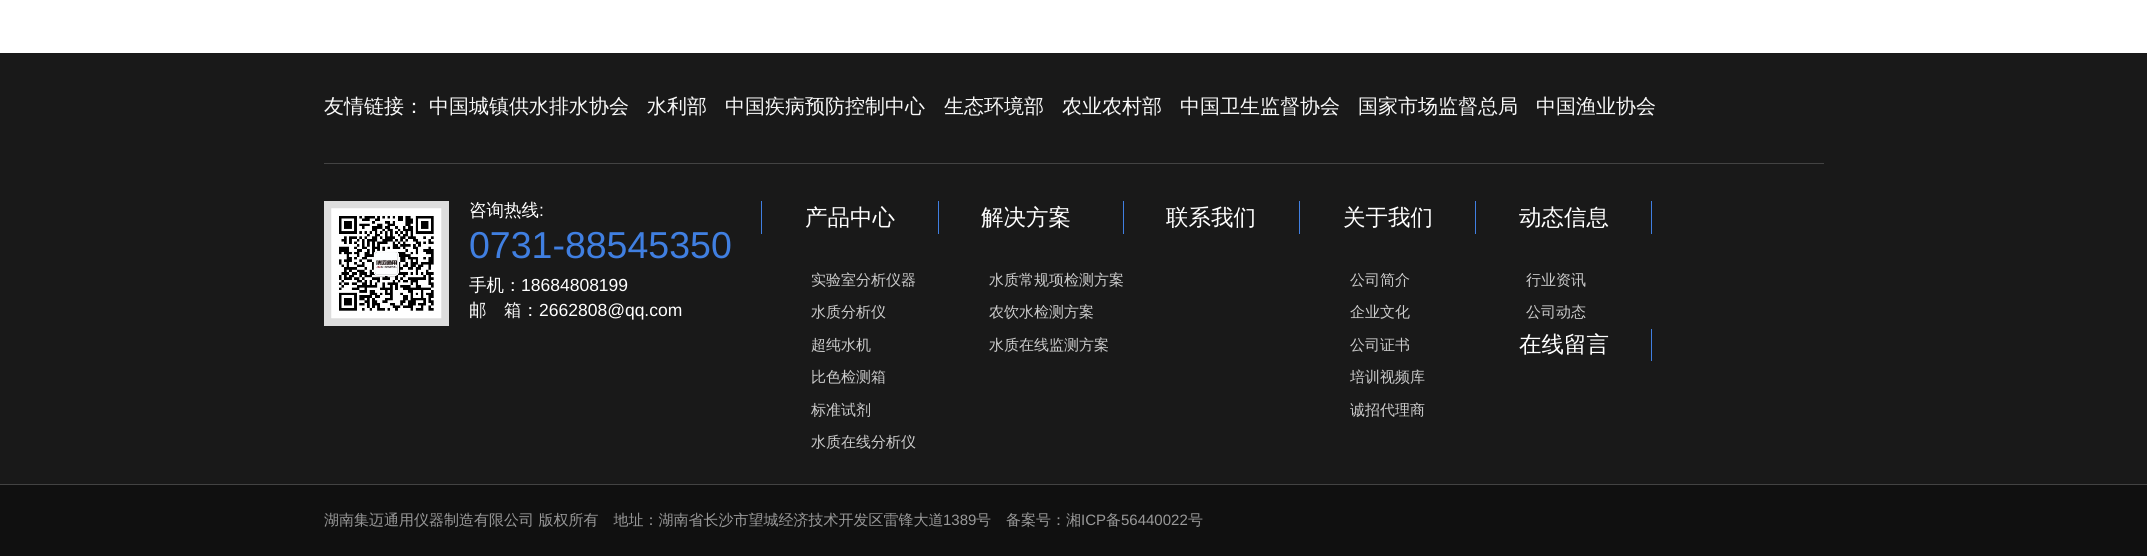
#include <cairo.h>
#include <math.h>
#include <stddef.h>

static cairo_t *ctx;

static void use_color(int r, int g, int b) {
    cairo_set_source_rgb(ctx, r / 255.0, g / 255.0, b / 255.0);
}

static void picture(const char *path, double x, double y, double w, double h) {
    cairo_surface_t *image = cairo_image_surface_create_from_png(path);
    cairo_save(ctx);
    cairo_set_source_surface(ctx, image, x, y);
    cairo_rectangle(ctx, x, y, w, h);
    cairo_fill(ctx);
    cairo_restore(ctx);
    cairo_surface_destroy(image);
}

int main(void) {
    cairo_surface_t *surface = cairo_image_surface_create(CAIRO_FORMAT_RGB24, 2147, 556);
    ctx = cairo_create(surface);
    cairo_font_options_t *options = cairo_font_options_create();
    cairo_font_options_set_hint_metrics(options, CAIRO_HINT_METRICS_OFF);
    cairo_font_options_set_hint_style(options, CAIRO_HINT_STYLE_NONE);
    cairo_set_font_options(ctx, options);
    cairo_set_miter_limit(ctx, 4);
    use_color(255, 255, 255);
    cairo_paint(ctx);
    use_color(25, 25, 25);
    cairo_rectangle(ctx, 0, 53, 2147, 431);
    cairo_fill(ctx);
    use_color(67, 67, 67);
    cairo_rectangle(ctx, 324, 163, 1500, 1);
    cairo_fill(ctx);
    cairo_select_font_face(ctx, "WenQuanYi Zen Hei Medium", CAIRO_FONT_SLANT_NORMAL, CAIRO_FONT_WEIGHT_NORMAL);
    cairo_set_font_size(ctx, 20);
    use_color(249, 249, 249);
    cairo_move_to(ctx, 324, 113);
    cairo_show_text(ctx, "友情链接：");
    cairo_move_to(ctx, 429, 113);
    cairo_show_text(ctx, "中国城镇供水排水协会");
    cairo_move_to(ctx, 647, 113);
    cairo_show_text(ctx, "水利部");
    cairo_move_to(ctx, 725, 113);
    cairo_show_text(ctx, "中国疾病预防控制中心");
    cairo_move_to(ctx, 944, 113);
    cairo_show_text(ctx, "生态环境部");
    cairo_move_to(ctx, 1062, 113);
    cairo_show_text(ctx, "农业农村部");
    cairo_move_to(ctx, 1180, 113);
    cairo_show_text(ctx, "中国卫生监督协会");
    cairo_move_to(ctx, 1358, 113);
    cairo_show_text(ctx, "国家市场监督总局");
    cairo_move_to(ctx, 1536, 113);
    cairo_show_text(ctx, "中国渔业协会");
    use_color(221, 221, 221);
    cairo_rectangle(ctx, 324, 201, 125, 125);
    cairo_fill(ctx);
    picture("img1.png", 331, 208, 111, 111);
    cairo_set_font_size(ctx, 17.5);
    use_color(255, 255, 255);
    cairo_move_to(ctx, 469, 216);
    cairo_show_text(ctx, "咨询热线");
    cairo_select_font_face(ctx, "Liberation Sans", CAIRO_FONT_SLANT_NORMAL, CAIRO_FONT_WEIGHT_NORMAL);
    cairo_move_to(ctx, 539, 216);
    cairo_show_text(ctx, ":");
    cairo_set_font_size(ctx, 37.5);
    use_color(64, 127, 225);
    cairo_move_to(ctx, 469, 258);
    cairo_show_text(ctx, "0731-88545350");
    cairo_select_font_face(ctx, "WenQuanYi Zen Hei Medium", CAIRO_FONT_SLANT_NORMAL, CAIRO_FONT_WEIGHT_NORMAL);
    cairo_set_font_size(ctx, 17.5);
    use_color(255, 255, 255);
    cairo_move_to(ctx, 469, 291);
    cairo_show_text(ctx, "手机：");
    cairo_select_font_face(ctx, "Liberation Sans", CAIRO_FONT_SLANT_NORMAL, CAIRO_FONT_WEIGHT_NORMAL);
    cairo_move_to(ctx, 521, 291);
    cairo_show_text(ctx, "18684808199");
    cairo_select_font_face(ctx, "WenQuanYi Zen Hei Medium", CAIRO_FONT_SLANT_NORMAL, CAIRO_FONT_WEIGHT_NORMAL);
    cairo_move_to(ctx, 469, 316);
    cairo_show_text(ctx, "邮　箱：");
    cairo_select_font_face(ctx, "Liberation Sans", CAIRO_FONT_SLANT_NORMAL, CAIRO_FONT_WEIGHT_NORMAL);
    cairo_move_to(ctx, 539, 316);
    cairo_show_text(ctx, "2662808@qq.com");
    use_color(64, 127, 225);
    cairo_rectangle(ctx, 938, 201, 1, 33);
    cairo_fill(ctx);
    cairo_rectangle(ctx, 761, 201, 1, 33);
    cairo_fill(ctx);
    cairo_select_font_face(ctx, "WenQuanYi Zen Hei Medium", CAIRO_FONT_SLANT_NORMAL, CAIRO_FONT_WEIGHT_NORMAL);
    cairo_set_font_size(ctx, 22.5);
    use_color(255, 255, 255);
    cairo_move_to(ctx, 805, 225);
    cairo_show_text(ctx, "产品中心");
    cairo_set_font_size(ctx, 15);
    use_color(204, 204, 204);
    cairo_move_to(ctx, 811, 285);
    cairo_show_text(ctx, "实验室分析仪器");
    cairo_move_to(ctx, 811, 317);
    cairo_show_text(ctx, "水质分析仪");
    cairo_move_to(ctx, 811, 350);
    cairo_show_text(ctx, "超纯水机");
    cairo_move_to(ctx, 811, 382);
    cairo_show_text(ctx, "比色检测箱");
    cairo_move_to(ctx, 811, 415);
    cairo_show_text(ctx, "标准试剂");
    cairo_move_to(ctx, 811, 447);
    cairo_show_text(ctx, "水质在线分析仪");
    use_color(64, 127, 225);
    cairo_rectangle(ctx, 1123, 201, 1, 33);
    cairo_fill(ctx);
    cairo_set_font_size(ctx, 22.5);
    use_color(255, 255, 255);
    cairo_move_to(ctx, 981, 225);
    cairo_show_text(ctx, "解决方案");
    cairo_set_font_size(ctx, 15);
    use_color(204, 204, 204);
    cairo_move_to(ctx, 989, 285);
    cairo_show_text(ctx, "水质常规项检测方案");
    cairo_move_to(ctx, 989, 317);
    cairo_show_text(ctx, "农饮水检测方案");
    cairo_move_to(ctx, 989, 350);
    cairo_show_text(ctx, "水质在线监测方案");
    use_color(64, 127, 225);
    cairo_rectangle(ctx, 1299, 201, 1, 33);
    cairo_fill(ctx);
    cairo_set_font_size(ctx, 22.5);
    use_color(255, 255, 255);
    cairo_move_to(ctx, 1166, 225);
    cairo_show_text(ctx, "联系我们");
    use_color(64, 127, 225);
    cairo_rectangle(ctx, 1475, 201, 1, 33);
    cairo_fill(ctx);
    use_color(255, 255, 255);
    cairo_move_to(ctx, 1343, 225);
    cairo_show_text(ctx, "关于我们");
    cairo_set_font_size(ctx, 15);
    use_color(204, 204, 204);
    cairo_move_to(ctx, 1350, 285);
    cairo_show_text(ctx, "公司简介");
    cairo_move_to(ctx, 1350, 317);
    cairo_show_text(ctx, "企业文化");
    cairo_move_to(ctx, 1350, 350);
    cairo_show_text(ctx, "公司证书");
    cairo_move_to(ctx, 1350, 382);
    cairo_show_text(ctx, "培训视频库");
    cairo_move_to(ctx, 1350, 415);
    cairo_show_text(ctx, "诚招代理商");
    use_color(64, 127, 225);
    cairo_rectangle(ctx, 1651, 201, 1, 33);
    cairo_fill(ctx);
    cairo_set_font_size(ctx, 22.5);
    use_color(255, 255, 255);
    cairo_move_to(ctx, 1519, 225);
    cairo_show_text(ctx, "动态信息");
    cairo_set_font_size(ctx, 15);
    use_color(204, 204, 204);
    cairo_move_to(ctx, 1526, 285);
    cairo_show_text(ctx, "行业资讯");
    cairo_move_to(ctx, 1526, 317);
    cairo_show_text(ctx, "公司动态");
    use_color(64, 127, 225);
    cairo_rectangle(ctx, 1651, 329, 1, 32);
    cairo_fill(ctx);
    cairo_set_font_size(ctx, 22.5);
    use_color(255, 255, 255);
    cairo_move_to(ctx, 1519, 352);
    cairo_show_text(ctx, "在线留言");
    use_color(16, 16, 16);
    cairo_rectangle(ctx, 0, 485, 2147, 71);
    cairo_fill(ctx);
    use_color(67, 67, 67);
    cairo_rectangle(ctx, 0, 484, 2147, 1);
    cairo_fill(ctx);
    cairo_set_font_size(ctx, 15);
    use_color(153, 153, 153);
    cairo_move_to(ctx, 324, 525);
    cairo_show_text(ctx, "湖南集迈通用仪器制造有限公司 版权所有　地址：湖南省长沙市望城经济技术开发区雷锋大道");
    cairo_select_font_face(ctx, "Liberation Sans", CAIRO_FONT_SLANT_NORMAL, CAIRO_FONT_WEIGHT_NORMAL);
    cairo_move_to(ctx, 943, 525);
    cairo_show_text(ctx, "1389");
    cairo_select_font_face(ctx, "WenQuanYi Zen Hei Medium", CAIRO_FONT_SLANT_NORMAL, CAIRO_FONT_WEIGHT_NORMAL);
    cairo_move_to(ctx, 976, 525);
    cairo_show_text(ctx, "号　备案号：湘");
    cairo_select_font_face(ctx, "Liberation Sans", CAIRO_FONT_SLANT_NORMAL, CAIRO_FONT_WEIGHT_NORMAL);
    cairo_move_to(ctx, 1081, 525);
    cairo_show_text(ctx, "ICP");
    cairo_select_font_face(ctx, "WenQuanYi Zen Hei Medium", CAIRO_FONT_SLANT_NORMAL, CAIRO_FONT_WEIGHT_NORMAL);
    cairo_move_to(ctx, 1106, 525);
    cairo_show_text(ctx, "备");
    cairo_select_font_face(ctx, "Liberation Sans", CAIRO_FONT_SLANT_NORMAL, CAIRO_FONT_WEIGHT_NORMAL);
    cairo_move_to(ctx, 1121, 525);
    cairo_show_text(ctx, "56440022");
    cairo_select_font_face(ctx, "WenQuanYi Zen Hei Medium", CAIRO_FONT_SLANT_NORMAL, CAIRO_FONT_WEIGHT_NORMAL);
    cairo_move_to(ctx, 1188, 525);
    cairo_show_text(ctx, "号");
    cairo_surface_write_to_png(surface, "result.png");
    cairo_font_options_destroy(options);
    cairo_destroy(ctx);
    cairo_surface_destroy(surface);
    return 0;
}
